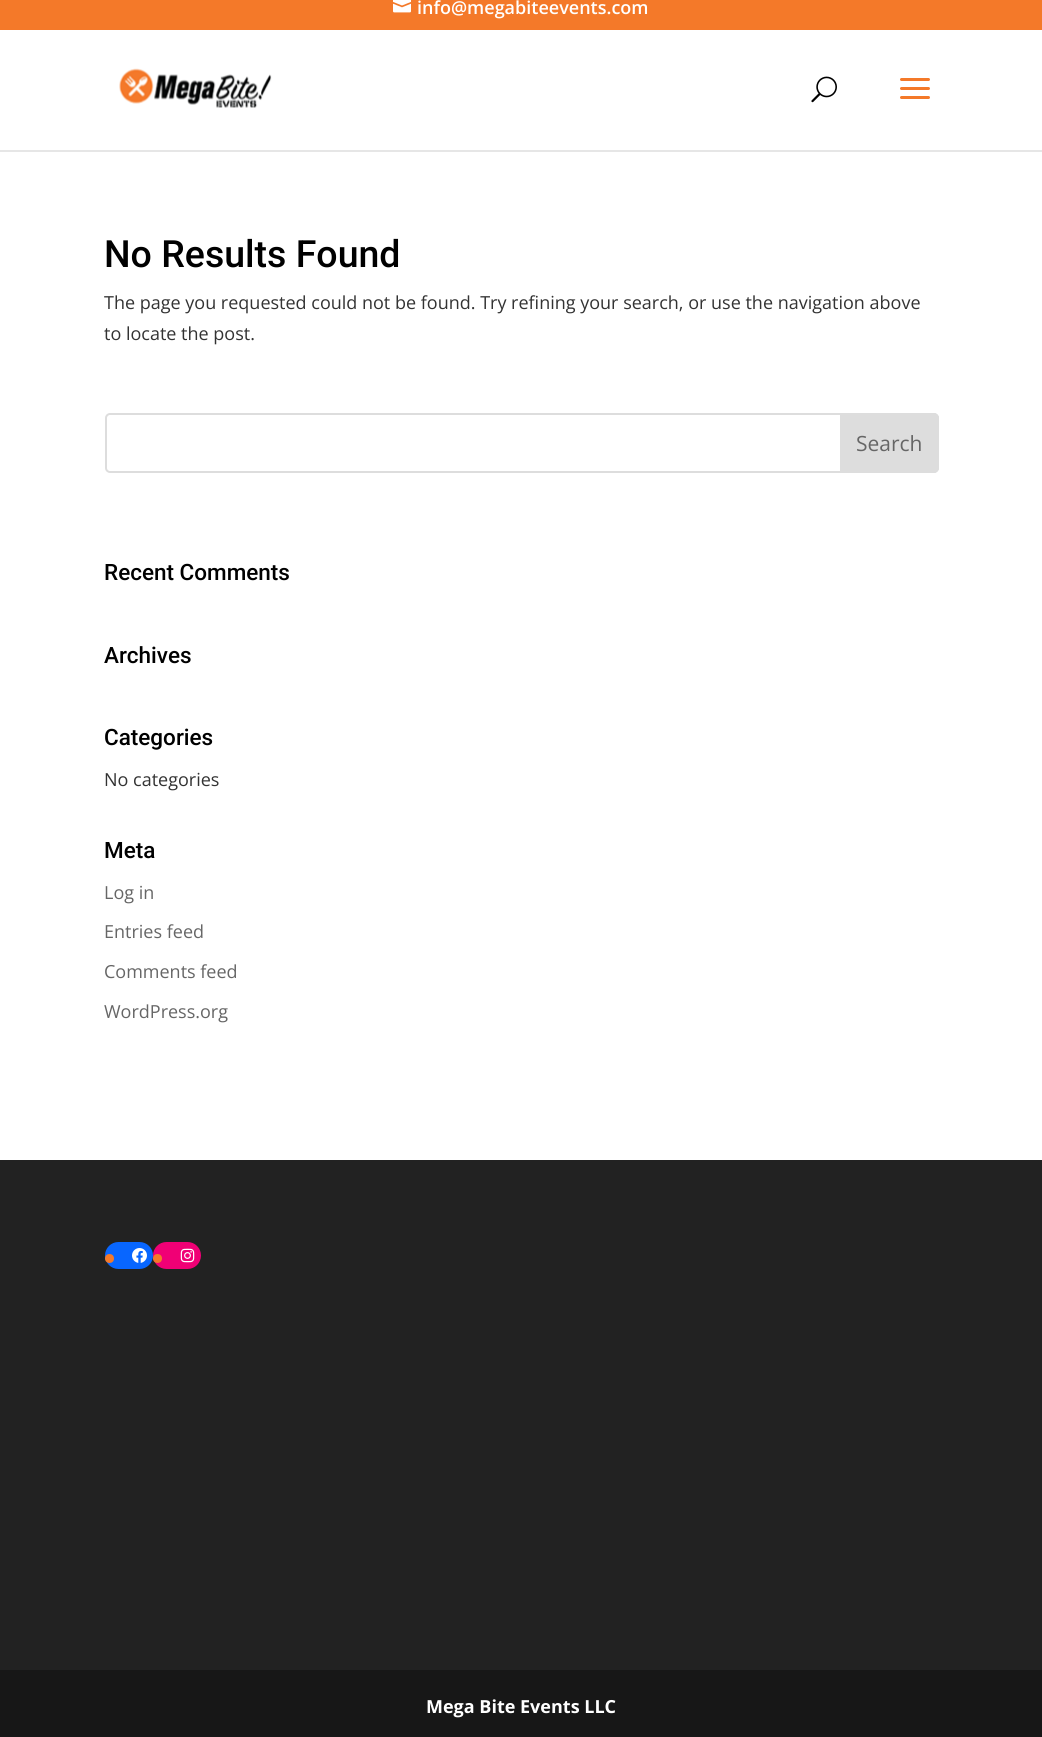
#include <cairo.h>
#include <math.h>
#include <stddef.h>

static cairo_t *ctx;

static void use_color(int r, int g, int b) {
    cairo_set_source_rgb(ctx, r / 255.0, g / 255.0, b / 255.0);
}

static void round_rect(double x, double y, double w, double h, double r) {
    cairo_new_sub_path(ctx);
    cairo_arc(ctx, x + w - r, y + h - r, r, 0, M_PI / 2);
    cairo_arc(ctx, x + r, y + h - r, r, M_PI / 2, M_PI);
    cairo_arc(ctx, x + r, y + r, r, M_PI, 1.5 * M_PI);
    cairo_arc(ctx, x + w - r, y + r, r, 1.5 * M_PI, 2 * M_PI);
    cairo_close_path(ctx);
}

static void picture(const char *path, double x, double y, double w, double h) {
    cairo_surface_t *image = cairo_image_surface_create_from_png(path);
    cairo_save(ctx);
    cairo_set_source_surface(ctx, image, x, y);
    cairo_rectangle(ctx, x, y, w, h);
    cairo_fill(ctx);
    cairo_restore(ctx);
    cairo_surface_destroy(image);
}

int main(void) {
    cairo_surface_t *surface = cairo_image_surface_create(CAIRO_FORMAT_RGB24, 1042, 1737);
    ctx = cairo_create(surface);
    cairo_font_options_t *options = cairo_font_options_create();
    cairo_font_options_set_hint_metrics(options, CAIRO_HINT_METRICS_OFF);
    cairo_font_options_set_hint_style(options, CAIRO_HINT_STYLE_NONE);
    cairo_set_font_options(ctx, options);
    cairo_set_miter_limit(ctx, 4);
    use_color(255, 255, 255);
    cairo_paint(ctx);
    use_color(244, 121, 41);
    cairo_rectangle(ctx, 0, 0, 1042, 30);
    cairo_fill(ctx);
    picture("img1.png", 393, 0, 18, 13);
    cairo_select_font_face(ctx, "Open Sans SemiBold", CAIRO_FONT_SLANT_NORMAL, CAIRO_FONT_WEIGHT_NORMAL);
    cairo_set_font_size(ctx, 18);
    use_color(255, 255, 255);
    cairo_move_to(ctx, 417, 14);
    cairo_show_text(ctx, "info@megabiteevents.com");
    use_color(230, 230, 230);
    cairo_new_path(ctx);
    cairo_move_to(ctx, 0, 150);
    cairo_line_to(ctx, 0, 152);
    cairo_line_to(ctx, 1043, 152);
    cairo_line_to(ctx, 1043, 32);
    cairo_line_to(ctx, 1042, 32);
    cairo_line_to(ctx, 1042, 150);
    cairo_close_path(ctx);
    cairo_fill(ctx);
    picture("img2.png", 119, 68, 153, 40);
    picture("img3.png", 811, 76, 26, 27);
    picture("img4.png", 900, 78, 30, 21);
    cairo_select_font_face(ctx, "Roboto Medium", CAIRO_FONT_SLANT_NORMAL, CAIRO_FONT_WEIGHT_NORMAL);
    cairo_set_font_size(ctx, 37.5);
    use_color(0, 0, 0);
    cairo_move_to(ctx, 104, 267);
    cairo_show_text(ctx, "No Results Found");
    cairo_select_font_face(ctx, "Open Sans", CAIRO_FONT_SLANT_NORMAL, CAIRO_FONT_WEIGHT_NORMAL);
    cairo_set_font_size(ctx, 18);
    use_color(51, 51, 51);
    cairo_move_to(ctx, 104, 309);
    cairo_show_text(ctx, "The page you requested could not be found. Try refining your search, or use the navigation above");
    cairo_move_to(ctx, 104, 340);
    cairo_show_text(ctx, "to locate the post.");
    round_rect(106, 414, 832, 58, 4);
    use_color(221, 221, 221);
    cairo_stroke(ctx);
    cairo_new_path(ctx);
    cairo_move_to(ctx, 841, 414);
    cairo_line_to(ctx, 934, 414);
    cairo_curve_to(ctx, 936, 414, 938, 416, 938, 418);
    cairo_line_to(ctx, 938, 468);
    cairo_curve_to(ctx, 938, 470, 936, 472, 934, 472);
    cairo_line_to(ctx, 841, 472);
    cairo_close_path(ctx);
    cairo_fill_preserve(ctx);
    cairo_stroke(ctx);
    cairo_set_font_size(ctx, 21);
    use_color(102, 102, 102);
    cairo_move_to(ctx, 856, 451);
    cairo_show_text(ctx, "Search");
    cairo_select_font_face(ctx, "Roboto Medium", CAIRO_FONT_SLANT_NORMAL, CAIRO_FONT_WEIGHT_NORMAL);
    cairo_set_font_size(ctx, 22.5);
    use_color(0, 0, 0);
    cairo_move_to(ctx, 104, 580);
    cairo_show_text(ctx, "Recent Comments");
    cairo_move_to(ctx, 104, 663);
    cairo_show_text(ctx, "Archives");
    cairo_move_to(ctx, 104, 745);
    cairo_show_text(ctx, "Categories");
    cairo_select_font_face(ctx, "Open Sans", CAIRO_FONT_SLANT_NORMAL, CAIRO_FONT_WEIGHT_NORMAL);
    cairo_set_font_size(ctx, 18);
    use_color(51, 51, 51);
    cairo_move_to(ctx, 104, 786);
    cairo_show_text(ctx, "No categories");
    cairo_select_font_face(ctx, "Roboto Medium", CAIRO_FONT_SLANT_NORMAL, CAIRO_FONT_WEIGHT_NORMAL);
    cairo_set_font_size(ctx, 22.5);
    use_color(0, 0, 0);
    cairo_move_to(ctx, 104, 858);
    cairo_show_text(ctx, "Meta");
    cairo_select_font_face(ctx, "Open Sans", CAIRO_FONT_SLANT_NORMAL, CAIRO_FONT_WEIGHT_NORMAL);
    cairo_set_font_size(ctx, 18);
    use_color(102, 102, 102);
    cairo_move_to(ctx, 104, 899);
    cairo_show_text(ctx, "Log in");
    cairo_move_to(ctx, 104, 938);
    cairo_show_text(ctx, "Entries feed");
    cairo_move_to(ctx, 104, 978);
    cairo_show_text(ctx, "Comments feed");
    cairo_move_to(ctx, 104, 1018);
    cairo_show_text(ctx, "WordPress.org");
    use_color(34, 34, 34);
    cairo_rectangle(ctx, 0, 1160, 1042, 510);
    cairo_fill(ctx);
    use_color(8, 102, 255);
    round_rect(105, 1242, 48, 27, 13.5);
    cairo_fill(ctx);
    use_color(244, 121, 41);
    cairo_arc(ctx, 109.5, 1258.5, 4.5, 0, 2 * M_PI);
    cairo_fill(ctx);
    picture("img5.png", 132, 1248, 15, 15);
    use_color(240, 0, 117);
    round_rect(153, 1242, 48, 27, 13.5);
    cairo_fill(ctx);
    use_color(244, 121, 41);
    cairo_arc(ctx, 157.5, 1258.5, 4.5, 0, 2 * M_PI);
    cairo_fill(ctx);
    picture("img6.png", 180, 1248, 15, 15);
    use_color(23, 23, 23);
    cairo_rectangle(ctx, 0, 1670, 1042, 67);
    cairo_fill(ctx);
    cairo_select_font_face(ctx, "Open Sans", CAIRO_FONT_SLANT_NORMAL, CAIRO_FONT_WEIGHT_BOLD);
    use_color(255, 255, 255);
    cairo_move_to(ctx, 426, 1713);
    cairo_show_text(ctx, "Mega Bite Events LLC");
    cairo_surface_write_to_png(surface, "result.png");
    cairo_font_options_destroy(options);
    cairo_destroy(ctx);
    cairo_surface_destroy(surface);
    return 0;
}
